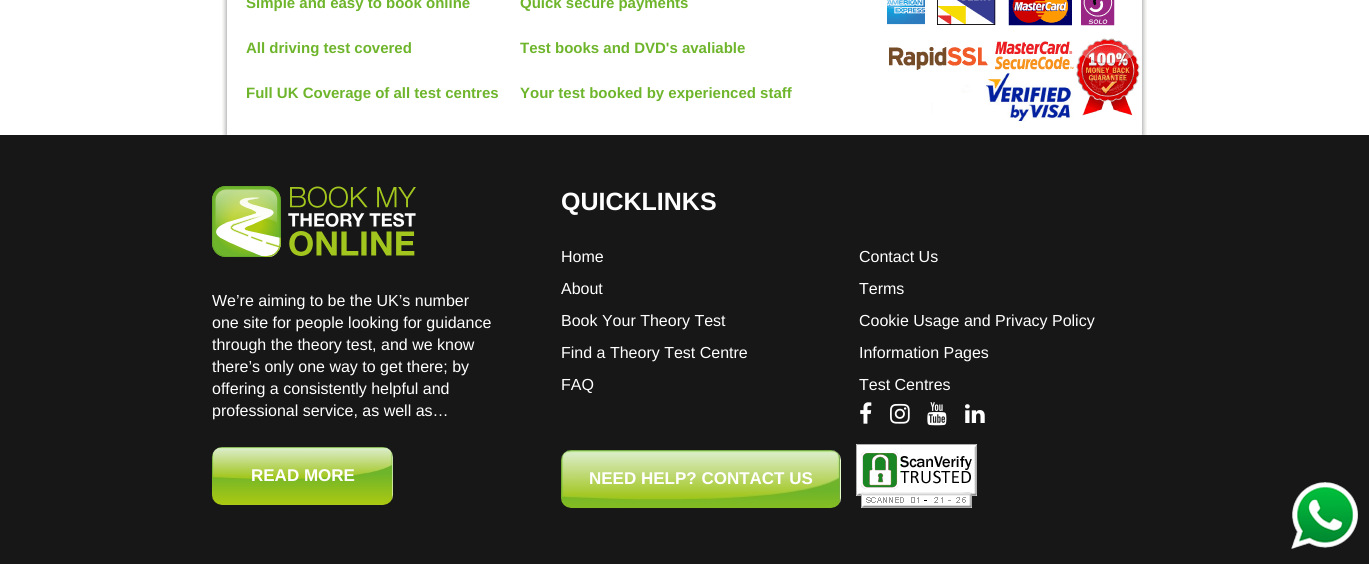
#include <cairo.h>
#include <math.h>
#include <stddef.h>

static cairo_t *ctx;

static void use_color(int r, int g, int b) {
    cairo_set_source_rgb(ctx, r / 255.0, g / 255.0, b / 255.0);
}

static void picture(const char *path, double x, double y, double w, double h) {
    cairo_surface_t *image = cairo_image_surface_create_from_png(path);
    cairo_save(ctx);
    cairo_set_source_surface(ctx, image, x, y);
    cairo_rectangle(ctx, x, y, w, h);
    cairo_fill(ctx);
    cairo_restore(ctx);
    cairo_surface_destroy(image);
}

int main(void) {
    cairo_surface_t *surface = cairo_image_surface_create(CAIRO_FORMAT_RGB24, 1369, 564);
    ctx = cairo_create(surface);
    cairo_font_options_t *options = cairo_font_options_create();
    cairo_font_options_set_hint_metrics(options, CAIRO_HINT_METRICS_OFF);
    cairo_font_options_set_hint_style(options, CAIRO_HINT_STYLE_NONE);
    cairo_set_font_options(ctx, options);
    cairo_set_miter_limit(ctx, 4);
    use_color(255, 255, 255);
    cairo_paint(ctx);
    picture("img1.png", 222, 0, 925, 135);
    cairo_select_font_face(ctx, "Liberation Sans", CAIRO_FONT_SLANT_NORMAL, CAIRO_FONT_WEIGHT_BOLD);
    cairo_set_font_size(ctx, 15);
    use_color(110, 181, 44);
    cairo_move_to(ctx, 246, 8);
    cairo_show_text(ctx, "Simple and easy to book online");
    cairo_move_to(ctx, 520, 8);
    cairo_show_text(ctx, "Quick secure payments");
    cairo_move_to(ctx, 246, 53);
    cairo_show_text(ctx, "All driving test covered");
    cairo_move_to(ctx, 520, 53);
    cairo_show_text(ctx, "Test books and DVD's avaliable");
    cairo_move_to(ctx, 246, 98);
    cairo_show_text(ctx, "Full UK Coverage of all test centres");
    cairo_move_to(ctx, 520, 98);
    cairo_show_text(ctx, "Your test booked by experienced staff");
    use_color(23, 23, 23);
    cairo_rectangle(ctx, 0, 135, 1369, 429);
    cairo_fill(ctx);
    picture("img2.png", 212, 186, 204, 71);
    cairo_select_font_face(ctx, "Liberation Sans", CAIRO_FONT_SLANT_NORMAL, CAIRO_FONT_WEIGHT_NORMAL);
    cairo_set_font_size(ctx, 16);
    use_color(255, 255, 255);
    cairo_move_to(ctx, 212, 306);
    cairo_show_text(ctx, "We’re aiming to be the UK’s number");
    cairo_move_to(ctx, 212, 328);
    cairo_show_text(ctx, "one site for people looking for guidance");
    cairo_move_to(ctx, 212, 350);
    cairo_show_text(ctx, "through the theory test, and we know");
    cairo_move_to(ctx, 212, 372);
    cairo_show_text(ctx, "there’s only one way to get there; by");
    cairo_move_to(ctx, 212, 394);
    cairo_show_text(ctx, "offering a consistently helpful and");
    cairo_move_to(ctx, 212, 416);
    cairo_show_text(ctx, "professional service, as well as…");
    picture("img3.png", 212, 447, 181, 58);
    cairo_select_font_face(ctx, "Liberation Sans", CAIRO_FONT_SLANT_NORMAL, CAIRO_FONT_WEIGHT_BOLD);
    cairo_set_font_size(ctx, 17);
    cairo_move_to(ctx, 251, 481);
    cairo_show_text(ctx, "READ MORE");
    cairo_set_font_size(ctx, 25);
    cairo_move_to(ctx, 561, 210);
    cairo_show_text(ctx, "QUICKLINKS");
    cairo_select_font_face(ctx, "Liberation Sans", CAIRO_FONT_SLANT_NORMAL, CAIRO_FONT_WEIGHT_NORMAL);
    cairo_set_font_size(ctx, 16);
    cairo_move_to(ctx, 561, 262);
    cairo_show_text(ctx, "Home");
    cairo_move_to(ctx, 561, 294);
    cairo_show_text(ctx, "About");
    cairo_move_to(ctx, 561, 326);
    cairo_show_text(ctx, "Book Your Theory Test");
    cairo_move_to(ctx, 561, 358);
    cairo_show_text(ctx, "Find a Theory Test Centre");
    cairo_move_to(ctx, 561, 390);
    cairo_show_text(ctx, "FAQ");
    cairo_move_to(ctx, 859, 262);
    cairo_show_text(ctx, "Contact Us");
    cairo_move_to(ctx, 859, 294);
    cairo_show_text(ctx, "Terms");
    cairo_move_to(ctx, 859, 326);
    cairo_show_text(ctx, "Cookie Usage and Privacy Policy");
    cairo_move_to(ctx, 859, 358);
    cairo_show_text(ctx, "Information Pages");
    cairo_move_to(ctx, 859, 390);
    cairo_show_text(ctx, "Test Centres");
    picture("img4.png", 860, 402, 12, 22);
    picture("img5.png", 890, 403, 20, 21);
    picture("img6.png", 927, 402, 20, 24);
    picture("img7.png", 965, 404, 20, 19);
    picture("img8.png", 561, 450, 280, 58);
    cairo_select_font_face(ctx, "Liberation Sans", CAIRO_FONT_SLANT_NORMAL, CAIRO_FONT_WEIGHT_BOLD);
    cairo_set_font_size(ctx, 17);
    cairo_move_to(ctx, 589, 484);
    cairo_show_text(ctx, "NEED HELP? CONTACT US");
    picture("img9.png", 856, 444, 121, 64);
    picture("img10.png", 1291, 482, 67, 67);
    cairo_surface_write_to_png(surface, "result.png");
    cairo_font_options_destroy(options);
    cairo_destroy(ctx);
    cairo_surface_destroy(surface);
    return 0;
}
